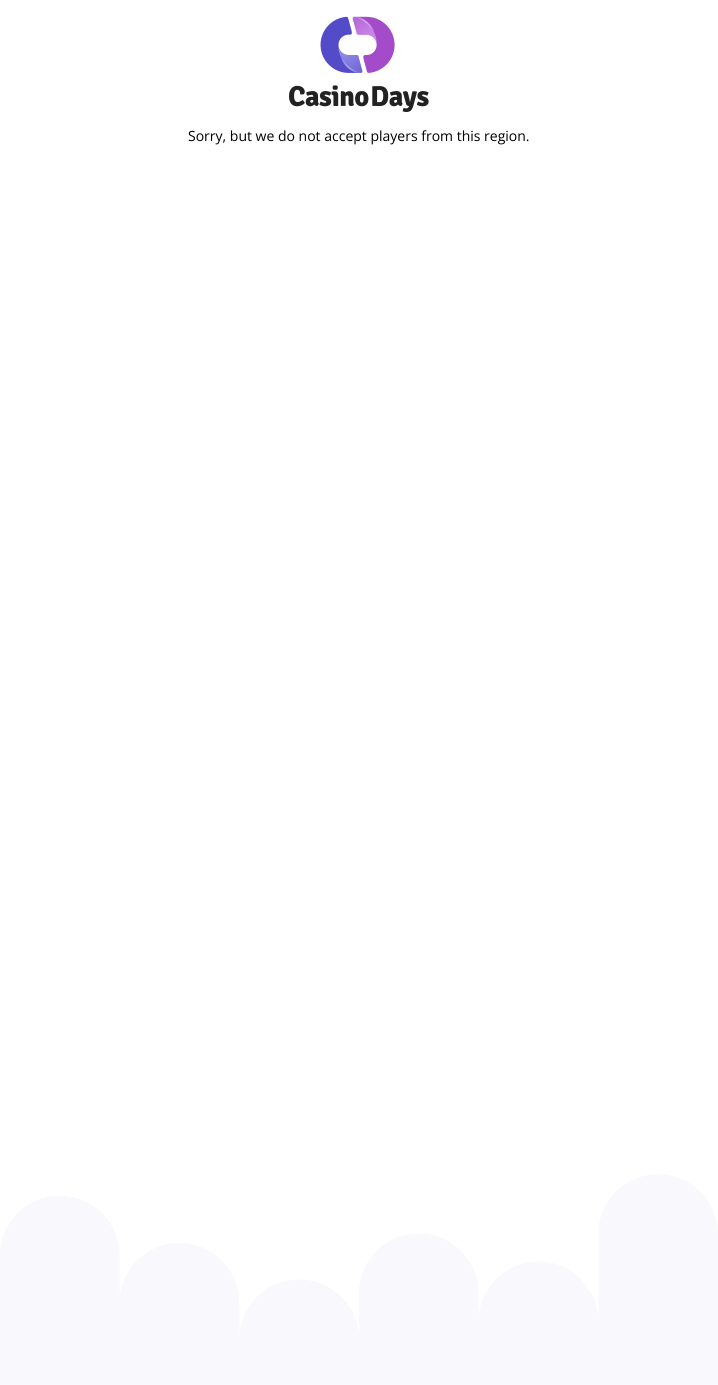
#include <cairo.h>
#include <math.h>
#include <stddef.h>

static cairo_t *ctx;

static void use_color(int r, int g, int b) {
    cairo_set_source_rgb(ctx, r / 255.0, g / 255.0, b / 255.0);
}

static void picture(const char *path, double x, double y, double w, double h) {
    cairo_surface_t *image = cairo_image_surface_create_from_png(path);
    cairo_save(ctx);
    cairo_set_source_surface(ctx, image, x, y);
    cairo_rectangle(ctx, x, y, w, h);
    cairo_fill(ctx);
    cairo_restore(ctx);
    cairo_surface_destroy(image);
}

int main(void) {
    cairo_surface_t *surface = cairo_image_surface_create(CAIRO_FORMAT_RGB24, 718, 1385);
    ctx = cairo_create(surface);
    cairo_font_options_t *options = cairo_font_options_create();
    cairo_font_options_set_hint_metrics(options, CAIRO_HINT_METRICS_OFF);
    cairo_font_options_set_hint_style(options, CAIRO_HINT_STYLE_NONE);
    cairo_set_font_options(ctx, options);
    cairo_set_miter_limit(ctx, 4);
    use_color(255, 255, 255);
    cairo_paint(ctx);
    picture("img1.png", 0, 1174, 718, 211);
    picture("img2.png", 289, 16, 140, 96);
    cairo_select_font_face(ctx, "Open Sans", CAIRO_FONT_SLANT_NORMAL, CAIRO_FONT_WEIGHT_NORMAL);
    cairo_set_font_size(ctx, 14);
    use_color(0, 0, 0);
    cairo_move_to(ctx, 188, 141);
    cairo_show_text(ctx, "Sorry, but we do not accept players from this region.");
    cairo_surface_write_to_png(surface, "result.png");
    cairo_font_options_destroy(options);
    cairo_destroy(ctx);
    cairo_surface_destroy(surface);
    return 0;
}
